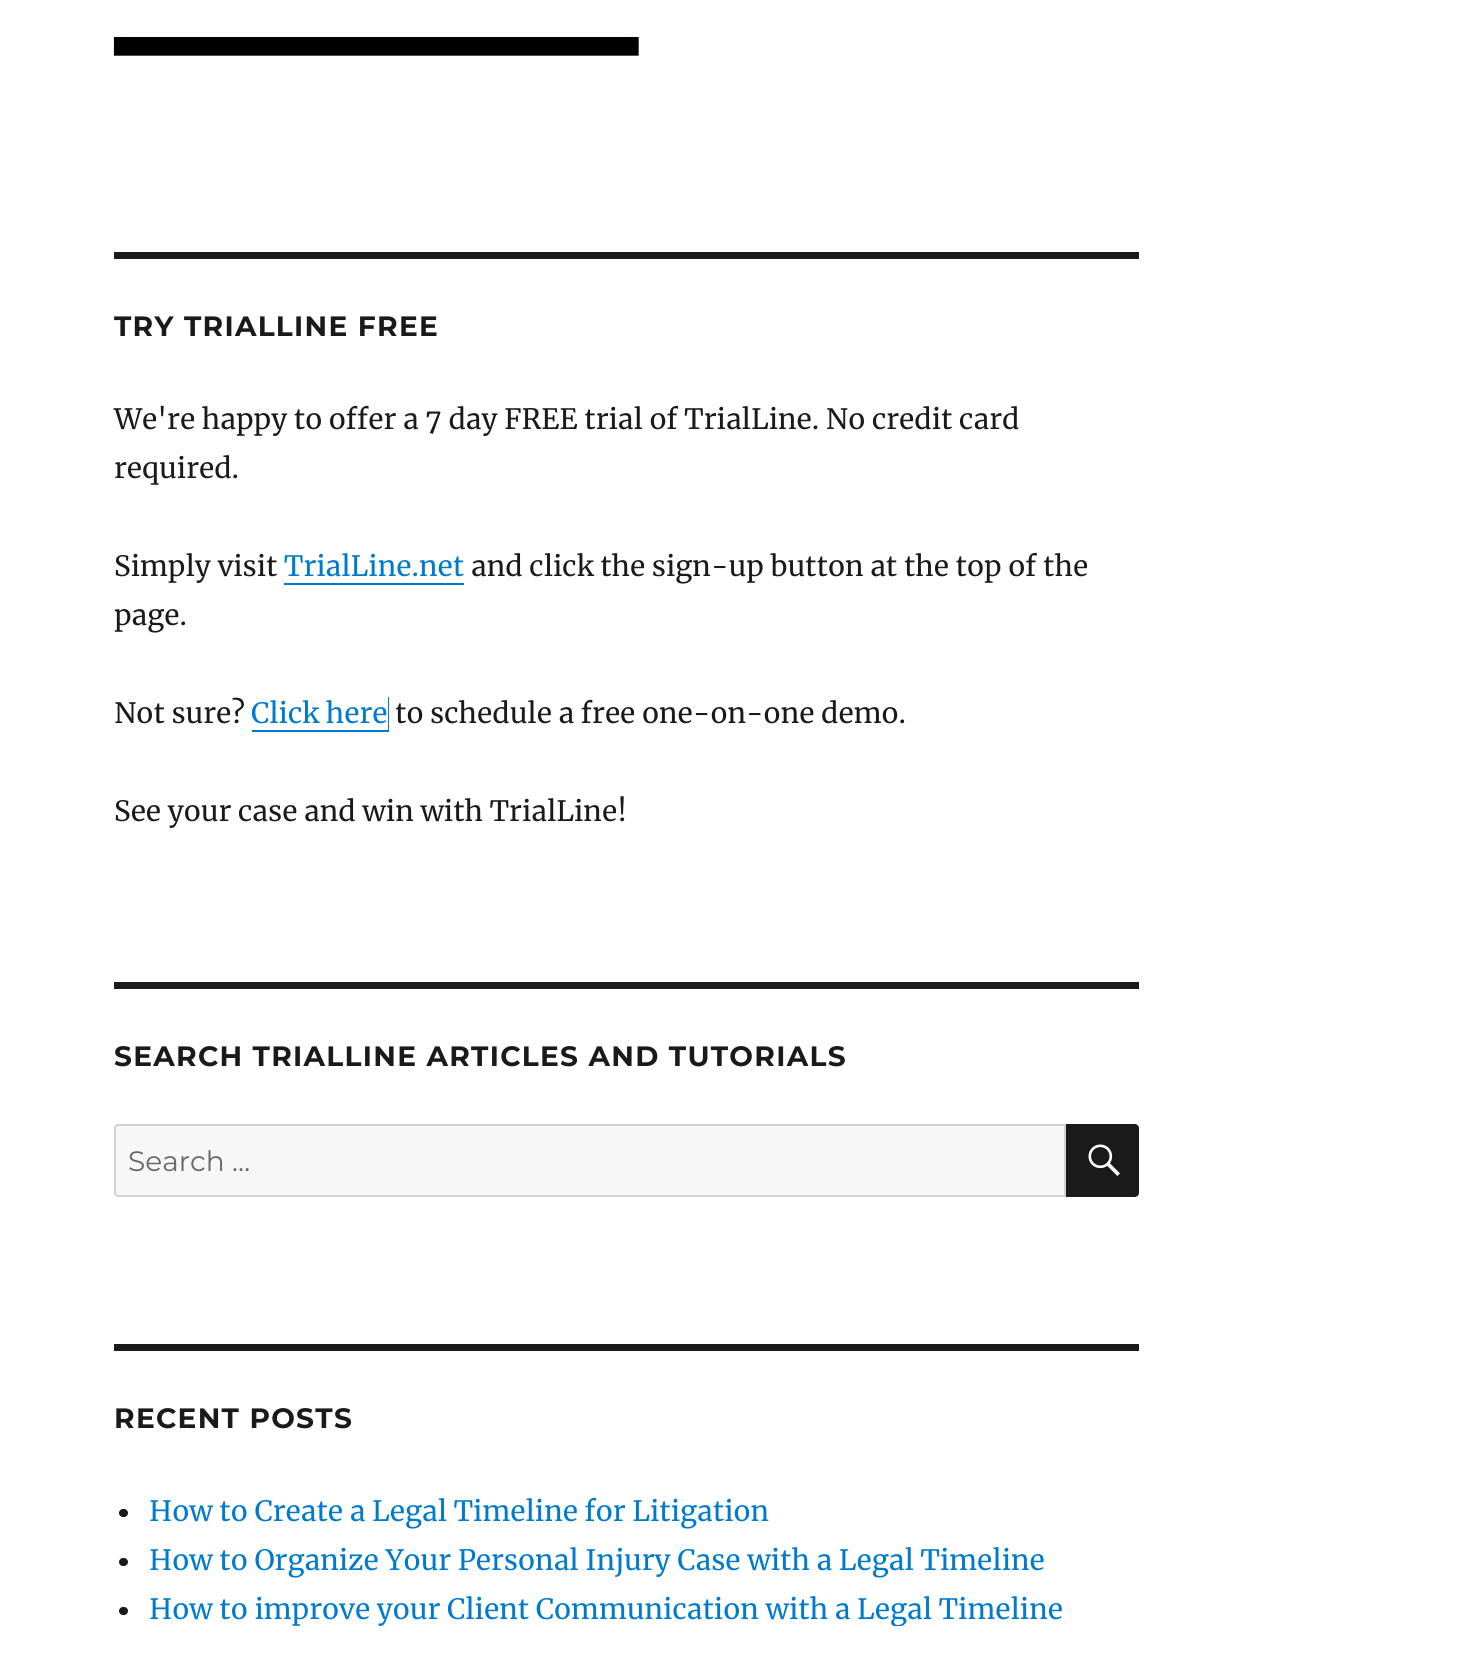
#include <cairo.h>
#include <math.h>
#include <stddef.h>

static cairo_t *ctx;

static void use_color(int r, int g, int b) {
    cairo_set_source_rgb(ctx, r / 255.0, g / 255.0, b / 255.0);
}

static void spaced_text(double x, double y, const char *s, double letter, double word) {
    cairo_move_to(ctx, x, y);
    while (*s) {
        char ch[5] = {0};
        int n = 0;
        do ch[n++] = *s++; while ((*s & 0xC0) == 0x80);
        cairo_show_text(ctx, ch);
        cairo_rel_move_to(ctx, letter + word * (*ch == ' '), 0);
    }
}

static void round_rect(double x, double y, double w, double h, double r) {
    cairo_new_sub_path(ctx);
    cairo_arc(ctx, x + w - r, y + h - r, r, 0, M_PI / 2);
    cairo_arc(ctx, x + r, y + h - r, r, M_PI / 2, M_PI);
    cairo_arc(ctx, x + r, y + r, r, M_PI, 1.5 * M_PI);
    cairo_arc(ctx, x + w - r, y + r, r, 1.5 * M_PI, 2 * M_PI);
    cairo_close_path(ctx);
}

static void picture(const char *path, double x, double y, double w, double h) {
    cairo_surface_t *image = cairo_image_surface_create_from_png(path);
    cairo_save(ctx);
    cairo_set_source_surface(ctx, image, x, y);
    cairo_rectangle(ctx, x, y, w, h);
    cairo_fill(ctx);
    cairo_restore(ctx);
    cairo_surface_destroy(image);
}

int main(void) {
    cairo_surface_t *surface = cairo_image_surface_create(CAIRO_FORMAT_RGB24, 1479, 1661);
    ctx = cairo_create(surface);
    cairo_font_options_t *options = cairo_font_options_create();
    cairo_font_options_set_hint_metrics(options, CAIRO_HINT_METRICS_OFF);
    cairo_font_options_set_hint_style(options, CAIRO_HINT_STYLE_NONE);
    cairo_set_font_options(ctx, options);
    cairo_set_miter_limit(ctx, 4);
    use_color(255, 255, 255);
    cairo_paint(ctx);
    picture("img1.png", 113, 37, 526, 19);
    use_color(26, 26, 26);
    cairo_rectangle(ctx, 114, 252, 1025, 7);
    cairo_fill(ctx);
    cairo_select_font_face(ctx, "Montserrat", CAIRO_FONT_SLANT_NORMAL, CAIRO_FONT_WEIGHT_BOLD);
    cairo_set_font_size(ctx, 28);
    spaced_text(114, 336, "TRY TRIALLINE FREE", 1.3, 0);
    cairo_select_font_face(ctx, "Merriweather", CAIRO_FONT_SLANT_NORMAL, CAIRO_FONT_WEIGHT_NORMAL);
    cairo_move_to(ctx, 114, 429);
    cairo_show_text(ctx, "We're happy to offer a 7 day FREE trial of TrialLine. No credit card");
    cairo_move_to(ctx, 114, 478);
    cairo_show_text(ctx, "required.");
    cairo_move_to(ctx, 114, 576);
    cairo_show_text(ctx, "Simply visit");
    use_color(0, 122, 204);
    cairo_move_to(ctx, 284, 576);
    cairo_show_text(ctx, "TrialLine.net");
    cairo_new_path(ctx);
    cairo_move_to(ctx, 284, 583);
    cairo_line_to(ctx, 284, 585);
    cairo_line_to(ctx, 464, 585);
    cairo_line_to(ctx, 464, 550);
    cairo_line_to(ctx, 464, 583);
    cairo_close_path(ctx);
    cairo_fill(ctx);
    use_color(26, 26, 26);
    cairo_move_to(ctx, 471, 576);
    cairo_show_text(ctx, "and click the sign-up button at the top of the");
    cairo_move_to(ctx, 114, 625);
    cairo_show_text(ctx, "page.");
    cairo_move_to(ctx, 114, 723);
    cairo_show_text(ctx, "Not sure?");
    use_color(0, 122, 204);
    cairo_new_path(ctx);
    cairo_move_to(ctx, 252, 730);
    cairo_line_to(ctx, 252, 732);
    cairo_line_to(ctx, 389, 732);
    cairo_line_to(ctx, 389, 697);
    cairo_line_to(ctx, 388, 697);
    cairo_line_to(ctx, 388, 730);
    cairo_close_path(ctx);
    cairo_fill(ctx);
    cairo_move_to(ctx, 251, 723);
    cairo_show_text(ctx, "Click here");
    use_color(26, 26, 26);
    cairo_move_to(ctx, 395, 723);
    cairo_show_text(ctx, "to schedule a free one-on-one demo.");
    cairo_move_to(ctx, 114, 821);
    cairo_show_text(ctx, "See your case and win with TrialLine!");
    cairo_rectangle(ctx, 114, 982, 1025, 7);
    cairo_fill(ctx);
    cairo_select_font_face(ctx, "Montserrat", CAIRO_FONT_SLANT_NORMAL, CAIRO_FONT_WEIGHT_BOLD);
    spaced_text(114, 1066, "SEARCH TRIALLINE ARTICLES AND TUTORIALS", 1.3, 0);
    use_color(247, 247, 247);
    cairo_new_path(ctx);
    cairo_move_to(ctx, 118, 1125);
    cairo_line_to(ctx, 1065, 1125);
    cairo_line_to(ctx, 1065, 1196);
    cairo_line_to(ctx, 118, 1196);
    cairo_curve_to(ctx, 116.5, 1196, 115, 1194.5, 115, 1193);
    cairo_line_to(ctx, 115, 1128);
    cairo_curve_to(ctx, 115, 1126.5, 116.5, 1125, 118, 1125);
    cairo_close_path(ctx);
    cairo_fill_preserve(ctx);
    use_color(209, 209, 209);
    cairo_stroke(ctx);
    cairo_select_font_face(ctx, "Montserrat", CAIRO_FONT_SLANT_NORMAL, CAIRO_FONT_WEIGHT_NORMAL);
    use_color(104, 104, 104);
    cairo_move_to(ctx, 128, 1171);
    cairo_show_text(ctx, "Search …");
    use_color(26, 26, 26);
    cairo_new_path(ctx);
    cairo_move_to(ctx, 1066, 1124);
    cairo_line_to(ctx, 1135, 1124);
    cairo_curve_to(ctx, 1137, 1124, 1139, 1126, 1139, 1128);
    cairo_line_to(ctx, 1139, 1193);
    cairo_curve_to(ctx, 1139, 1195, 1137, 1197, 1135, 1197);
    cairo_line_to(ctx, 1066, 1197);
    cairo_close_path(ctx);
    cairo_fill(ctx);
    picture("img2.png", 1088, 1144, 32, 32);
    cairo_rectangle(ctx, 114, 1344, 1025, 7);
    cairo_fill(ctx);
    cairo_select_font_face(ctx, "Montserrat", CAIRO_FONT_SLANT_NORMAL, CAIRO_FONT_WEIGHT_BOLD);
    spaced_text(114, 1428, "RECENT POSTS", 1.3, 0);
    round_rect(119, 1509, 9, 8, 4);
    cairo_fill(ctx);
    cairo_select_font_face(ctx, "Merriweather", CAIRO_FONT_SLANT_NORMAL, CAIRO_FONT_WEIGHT_NORMAL);
    use_color(0, 122, 204);
    cairo_move_to(ctx, 149, 1521);
    cairo_show_text(ctx, "How to Create a Legal Timeline for Litigation");
    use_color(26, 26, 26);
    round_rect(119, 1558, 9, 8, 4);
    cairo_fill(ctx);
    use_color(0, 122, 204);
    cairo_move_to(ctx, 149, 1570);
    cairo_show_text(ctx, "How to Organize Your Personal Injury Case with a Legal Timeline");
    use_color(26, 26, 26);
    round_rect(119, 1607, 9, 8, 4);
    cairo_fill(ctx);
    use_color(0, 122, 204);
    cairo_move_to(ctx, 149, 1619);
    cairo_show_text(ctx, "How to improve your Client Communication with a Legal Timeline");
    use_color(255, 255, 255);
    cairo_rectangle(ctx, 894, 1626, 8, 1);
    cairo_fill(ctx);
    cairo_surface_write_to_png(surface, "result.png");
    cairo_font_options_destroy(options);
    cairo_destroy(ctx);
    cairo_surface_destroy(surface);
    return 0;
}
